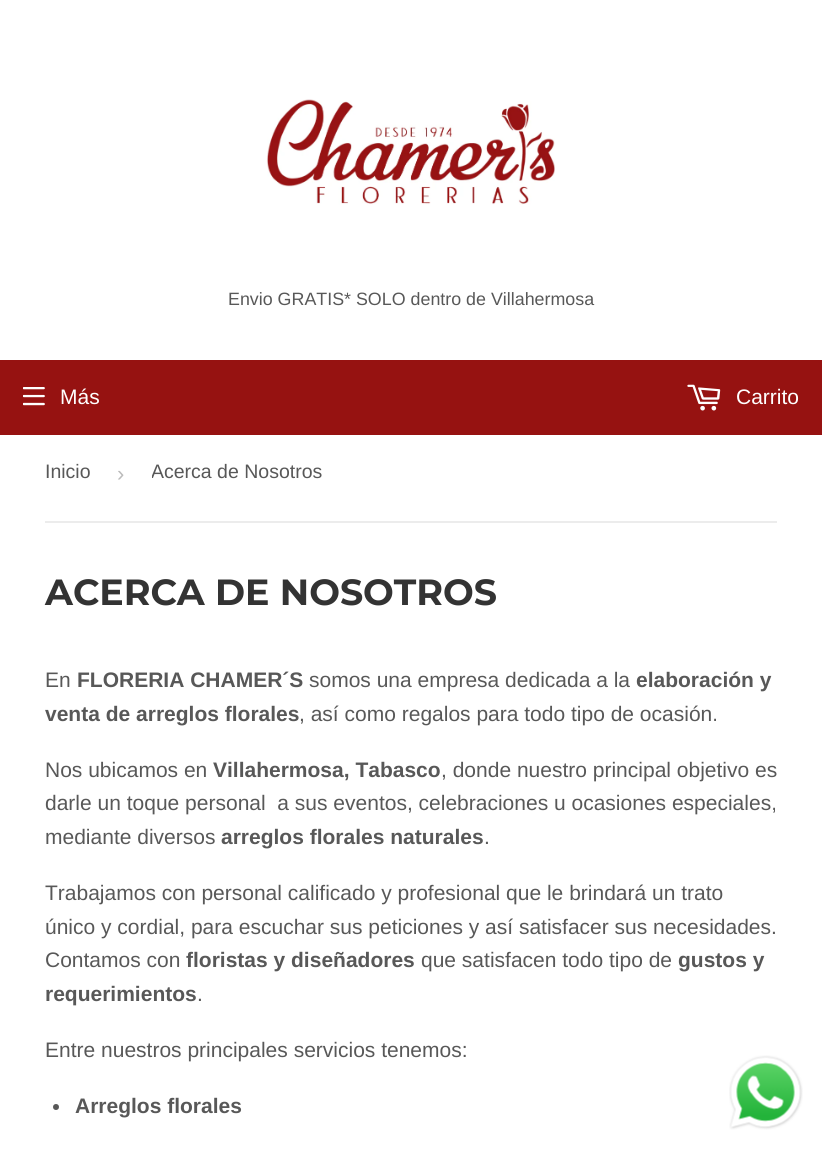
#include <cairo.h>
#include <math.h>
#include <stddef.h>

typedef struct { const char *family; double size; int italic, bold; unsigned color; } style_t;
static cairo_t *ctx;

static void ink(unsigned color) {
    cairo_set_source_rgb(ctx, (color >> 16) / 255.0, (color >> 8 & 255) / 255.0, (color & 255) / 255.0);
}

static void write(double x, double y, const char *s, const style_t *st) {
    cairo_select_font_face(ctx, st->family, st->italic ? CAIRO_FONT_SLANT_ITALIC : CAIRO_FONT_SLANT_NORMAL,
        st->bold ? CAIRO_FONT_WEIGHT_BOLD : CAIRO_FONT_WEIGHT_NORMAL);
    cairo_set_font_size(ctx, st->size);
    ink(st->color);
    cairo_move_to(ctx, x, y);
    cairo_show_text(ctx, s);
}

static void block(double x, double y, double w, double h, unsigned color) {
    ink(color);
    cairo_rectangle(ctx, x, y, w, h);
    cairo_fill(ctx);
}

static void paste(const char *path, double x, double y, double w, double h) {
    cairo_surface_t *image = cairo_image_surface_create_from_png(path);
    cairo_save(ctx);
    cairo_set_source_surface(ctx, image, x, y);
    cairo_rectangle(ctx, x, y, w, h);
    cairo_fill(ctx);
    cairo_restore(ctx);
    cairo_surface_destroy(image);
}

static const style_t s1 = {"Liberation Sans", 17.85, 0, 0, 0x585858};
static const style_t s2 = {"Liberation Sans", 21, 0, 0, 0xffffff};
static const style_t s3 = {"Liberation Sans", 19.5, 0, 0, 0x585858};
static const style_t s4 = {"Liberation Sans", 22, 0, 0, 0xbbbbbb};
static const style_t s5 = {"Montserrat Thin", 36.4, 0, 0, 0x333333};
static const style_t s6 = {"Liberation Sans", 21, 0, 0, 0x585858};
static const style_t s7 = {"Liberation Sans", 21, 0, 1, 0x585858};

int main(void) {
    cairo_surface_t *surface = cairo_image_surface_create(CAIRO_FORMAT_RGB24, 822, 1149);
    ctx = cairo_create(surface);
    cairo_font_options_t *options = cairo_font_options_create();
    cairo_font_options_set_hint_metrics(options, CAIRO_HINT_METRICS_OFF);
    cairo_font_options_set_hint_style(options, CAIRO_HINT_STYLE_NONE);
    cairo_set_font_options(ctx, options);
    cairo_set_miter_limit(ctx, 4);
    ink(0xffffff);
    cairo_paint(ctx);
    paste("pic1.png", 266, 99, 289, 106);
    write(228, 305, "Envio GRATIS* SOLO dentro de Villahermosa", &s1);
    block(0, 360, 822, 75, 0x961211);
    paste("pic2.png", 23, 387, 22, 19);
    write(60, 404, "Más", &s2);
    paste("pic3.png", 687, 384, 34, 27);
    write(736, 404, "Carrito", &s2);
    block(45, 521, 732, 2, 0xececec);
    write(45, 478, "Inicio", &s3);
    write(117, 481, "›", &s4);
    cairo_save(ctx);
    cairo_rectangle(ctx, 152, 435, 181, 75);
    cairo_clip(ctx);
    write(151, 478, "Acerca de Nosotros", &s3);
    cairo_restore(ctx);
    write(45, 605, "ACERCA DE NOSOTROS", &s5);
    write(45, 687, "En", &s6);
    write(77, 687, "FLORERIA CHAMER´S", &s7);
    write(309, 687, "somos una empresa dedicada a la", &s6);
    write(636, 687, "elaboración y", &s7);
    write(45, 721, "venta de arreglos florales", &s7);
    write(299, 721, ", así como regalos para todo tipo de ocasión.", &s6);
    write(45, 777, "Nos ubicamos en", &s6);
    write(213, 777, "Villahermosa, Tabasco", &s7);
    write(441, 777, ", donde nuestro principal objetivo es", &s6);
    write(45, 810, "darle un toque personal  a sus eventos, celebraciones u ocasiones especiales,", &s6);
    write(45, 844, "mediante diversos", &s6);
    write(221, 844, "arreglos florales naturales", &s7);
    write(484, 844, ".", &s6);
    write(45, 900, "Trabajamos con personal calificado y profesional que le brindará un trato", &s6);
    write(45, 934, "único y cordial, para escuchar sus peticiones y así satisfacer sus necesidades.", &s6);
    write(45, 967, "Contamos con", &s6);
    write(186, 967, "floristas y diseñadores", &s7);
    write(421, 967, "que satisfacen todo tipo de", &s6);
    write(678, 967, "gustos y", &s7);
    write(45, 1001, "requerimientos", &s7);
    write(197, 1001, ".", &s6);
    write(45, 1057, "Entre nuestros principales servicios tenemos:", &s6);
    cairo_new_path(ctx);
    cairo_arc(ctx, 56, 1107, 3, 0, 2 * M_PI);
    cairo_fill(ctx);
    write(75, 1113, "Arreglos florales", &s7);
    paste("pic4.png", 729, 1055, 74, 75);
    cairo_surface_write_to_png(surface, "screenshot.png");
    cairo_font_options_destroy(options);
    cairo_destroy(ctx);
    cairo_surface_destroy(surface);
    return 0;
}
